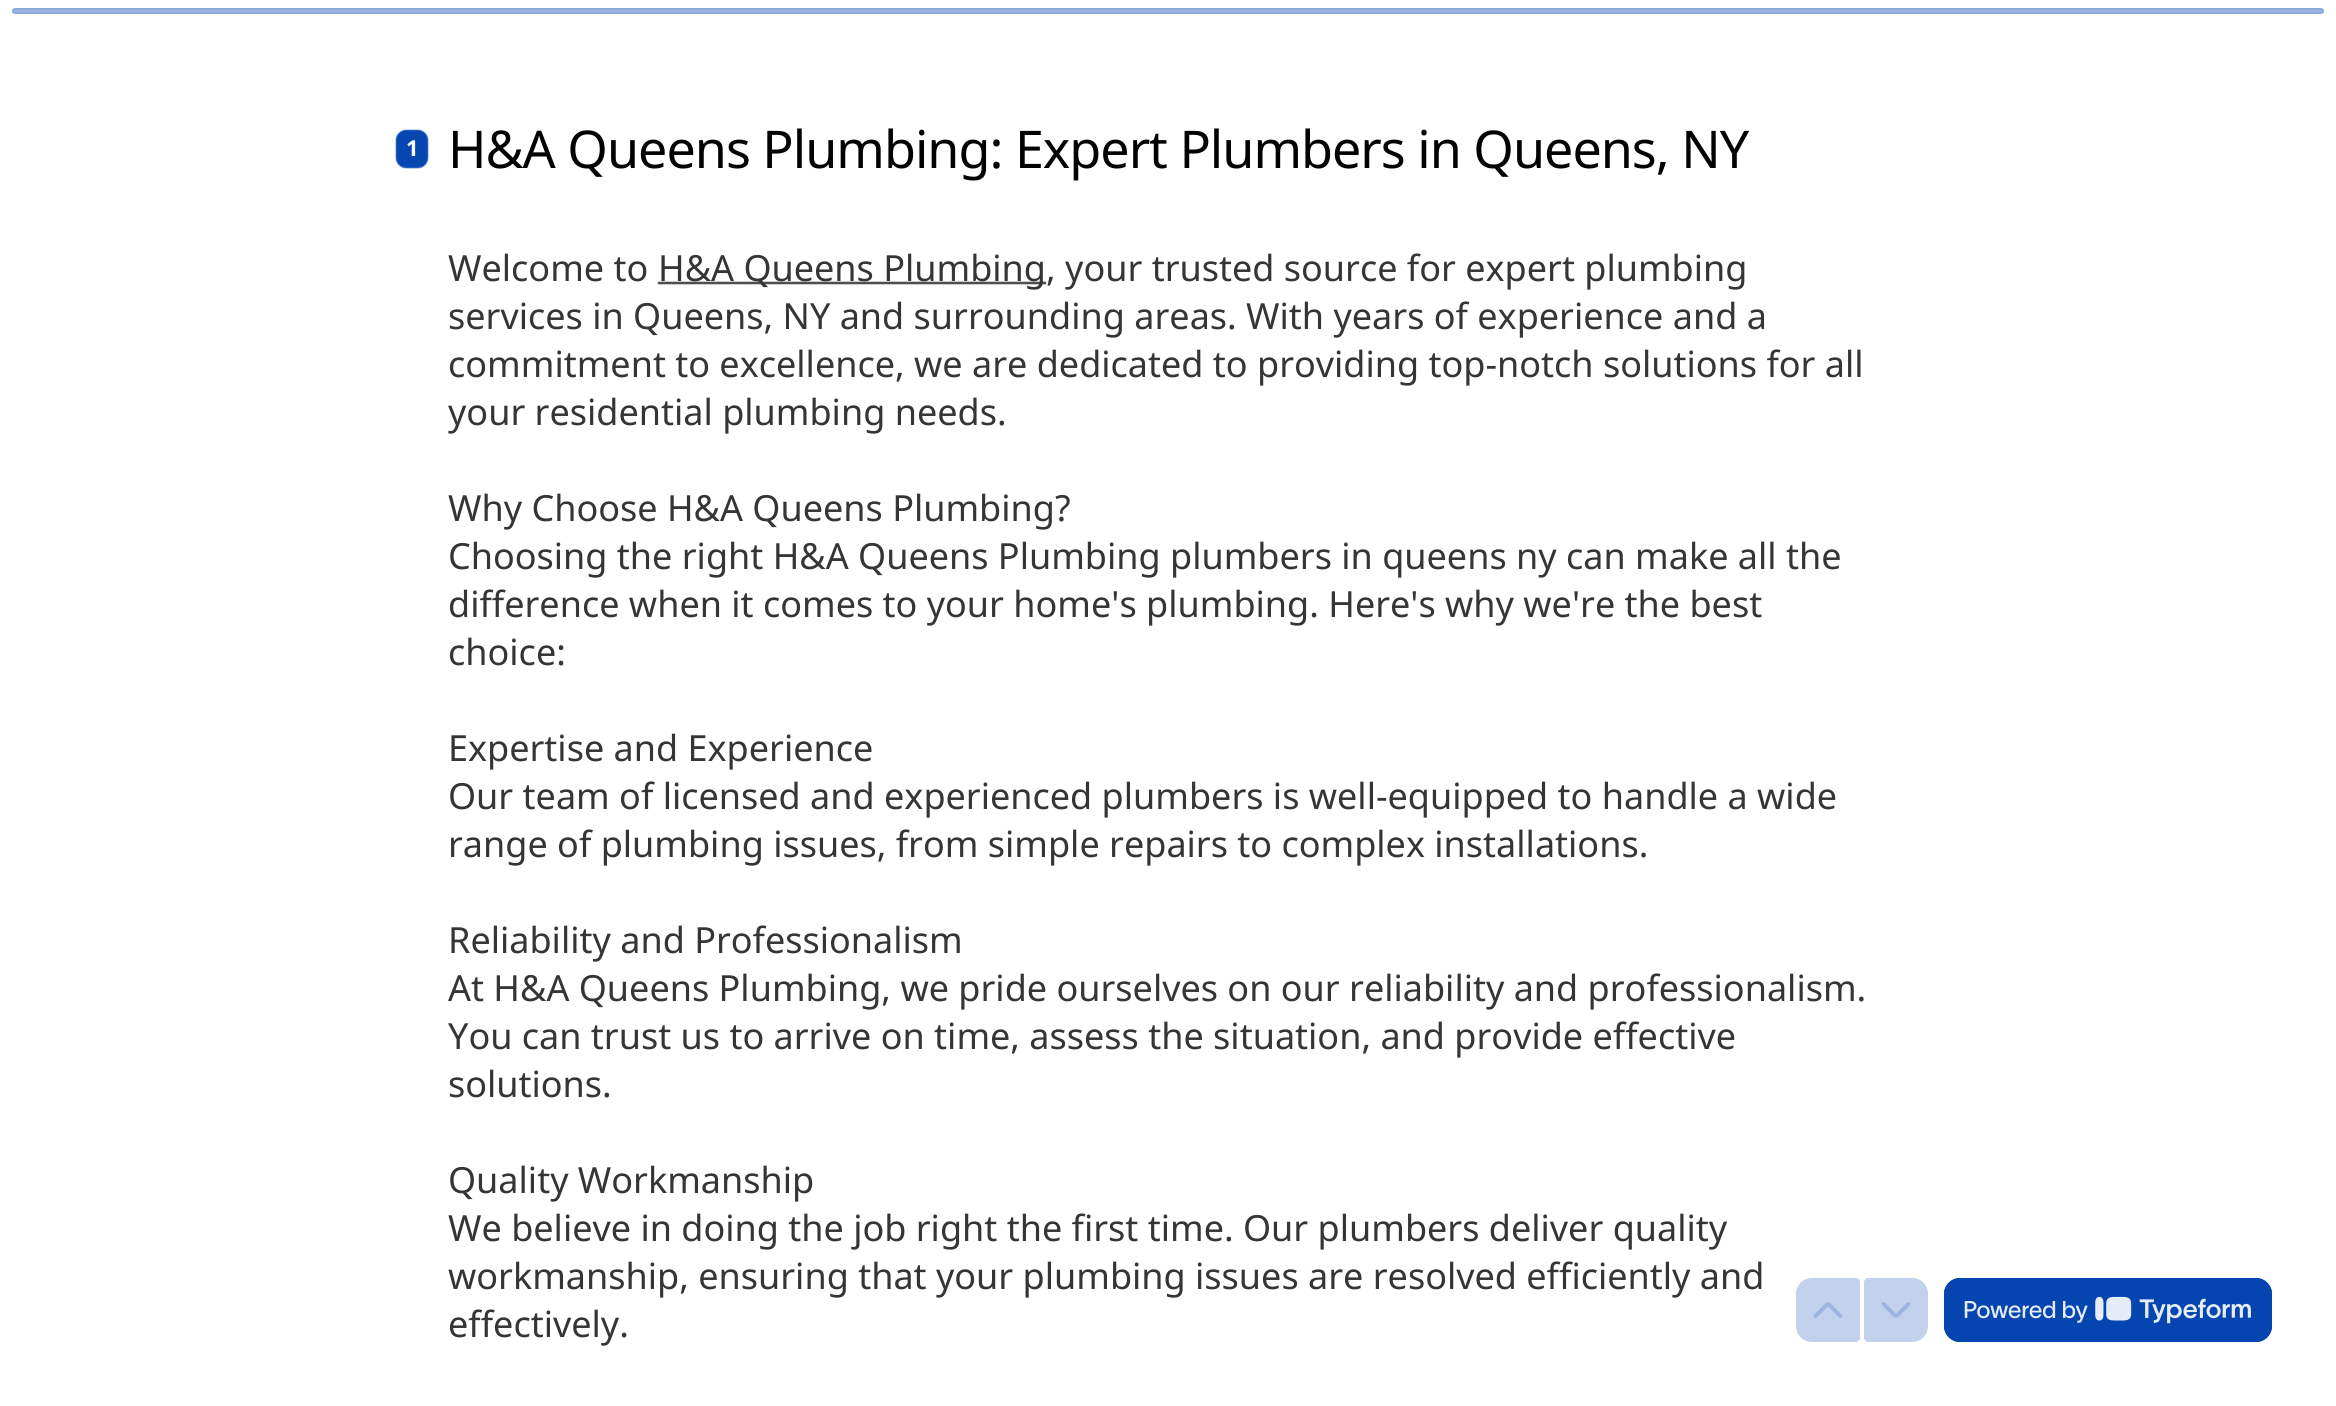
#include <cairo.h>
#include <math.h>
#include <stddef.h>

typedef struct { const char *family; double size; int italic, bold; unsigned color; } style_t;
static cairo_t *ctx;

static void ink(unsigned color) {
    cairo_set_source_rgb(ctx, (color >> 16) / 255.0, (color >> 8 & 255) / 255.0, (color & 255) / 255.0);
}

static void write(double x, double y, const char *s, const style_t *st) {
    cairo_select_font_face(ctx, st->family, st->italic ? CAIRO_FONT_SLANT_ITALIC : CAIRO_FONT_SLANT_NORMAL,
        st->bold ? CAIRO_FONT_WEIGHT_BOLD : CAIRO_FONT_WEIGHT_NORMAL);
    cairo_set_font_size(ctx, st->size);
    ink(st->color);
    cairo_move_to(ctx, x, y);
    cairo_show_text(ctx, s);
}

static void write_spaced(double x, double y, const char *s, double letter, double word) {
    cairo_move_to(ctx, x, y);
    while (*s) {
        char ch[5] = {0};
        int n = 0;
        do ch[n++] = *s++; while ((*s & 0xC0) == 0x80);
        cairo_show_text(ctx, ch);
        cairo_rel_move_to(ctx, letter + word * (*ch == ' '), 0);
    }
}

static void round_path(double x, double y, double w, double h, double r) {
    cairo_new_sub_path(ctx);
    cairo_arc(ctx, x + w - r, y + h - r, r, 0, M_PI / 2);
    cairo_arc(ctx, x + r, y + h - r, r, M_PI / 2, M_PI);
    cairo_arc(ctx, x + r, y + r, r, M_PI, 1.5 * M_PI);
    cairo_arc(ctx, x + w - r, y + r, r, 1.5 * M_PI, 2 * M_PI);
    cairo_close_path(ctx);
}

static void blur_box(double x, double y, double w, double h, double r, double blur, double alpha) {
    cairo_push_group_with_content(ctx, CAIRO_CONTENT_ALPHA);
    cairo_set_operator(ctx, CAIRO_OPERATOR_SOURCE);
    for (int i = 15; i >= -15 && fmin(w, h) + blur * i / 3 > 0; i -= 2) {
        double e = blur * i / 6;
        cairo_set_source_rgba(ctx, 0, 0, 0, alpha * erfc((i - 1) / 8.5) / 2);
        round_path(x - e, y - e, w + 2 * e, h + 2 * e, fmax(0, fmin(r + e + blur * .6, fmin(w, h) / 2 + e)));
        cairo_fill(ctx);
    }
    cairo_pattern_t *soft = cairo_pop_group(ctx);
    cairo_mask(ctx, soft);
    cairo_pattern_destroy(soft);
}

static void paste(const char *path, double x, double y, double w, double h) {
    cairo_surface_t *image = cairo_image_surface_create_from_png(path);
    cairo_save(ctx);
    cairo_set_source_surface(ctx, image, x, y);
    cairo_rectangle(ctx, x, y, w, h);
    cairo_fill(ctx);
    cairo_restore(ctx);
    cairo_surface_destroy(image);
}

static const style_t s1 = {"Noto Sans", 22, 0, 1, 0xffffff};
static const style_t s2 = {"Noto Sans", 36, 0, 0, 0x353535};

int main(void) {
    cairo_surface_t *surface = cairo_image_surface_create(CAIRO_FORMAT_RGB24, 2336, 1406);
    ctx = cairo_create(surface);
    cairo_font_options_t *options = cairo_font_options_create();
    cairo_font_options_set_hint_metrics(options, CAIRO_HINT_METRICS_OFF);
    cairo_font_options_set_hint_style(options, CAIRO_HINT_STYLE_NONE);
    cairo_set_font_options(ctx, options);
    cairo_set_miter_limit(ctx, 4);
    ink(0xffffff);
    cairo_paint(ctx);
    ink(0x9bb5df);
    round_path(12, 8, 2312, 6, 3);
    cairo_fill(ctx);
    round_path(13, 9, 2310, 4, 2);
    cairo_set_source_rgba(ctx, 0.016, 0.271, 0.686, 0.1);
    cairo_stroke(ctx);
    ink(0x0646b0);
    blur_box(396, 130, 32, 38, 10, 0.5, 1);
    write(406, 156, "1", &s1);
    cairo_select_font_face(ctx, "Noto Sans", CAIRO_FONT_SLANT_NORMAL, CAIRO_FONT_WEIGHT_NORMAL);
    cairo_set_font_size(ctx, 52);
    ink(0x020202);
    write_spaced(448, 168, "H&A Queens Plumbing: Expert Plumbers in Queens, NY", -1, 0);
    write(448, 281, "Welcome to", &s2);
    ink(0x353535);
    blur_box(658, 282, 388, 2, 0, 0.5, 1);
    write(658, 281, "H&A Queens Plumbing, your trusted source for expert plumbing", &s2);
    write(448, 329, "services in Queens, NY and surrounding areas. With years of experience and a", &s2);
    write(448, 377, "commitment to excellence, we are dedicated to providing top-notch solutions for all", &s2);
    write(448, 425, "your residential plumbing needs.", &s2);
    write(448, 521, "Why Choose H&A Queens Plumbing?", &s2);
    write(448, 569, "Choosing the right H&A Queens Plumbing plumbers in queens ny can make all the", &s2);
    write(448, 617, "difference when it comes to your home's plumbing. Here's why we're the best", &s2);
    write(448, 665, "choice:", &s2);
    write(448, 761, "Expertise and Experience", &s2);
    write(448, 809, "Our team of licensed and experienced plumbers is well-equipped to handle a wide", &s2);
    write(448, 857, "range of plumbing issues, from simple repairs to complex installations.", &s2);
    write(448, 953, "Reliability and Professionalism", &s2);
    write(448, 1001, "At H&A Queens Plumbing, we pride ourselves on our reliability and professionalism.", &s2);
    write(448, 1049, "You can trust us to arrive on time, assess the situation, and provide effective", &s2);
    write(448, 1097, "solutions.", &s2);
    write(448, 1193, "Quality Workmanship", &s2);
    write(448, 1241, "We believe in doing the job right the first time. Our plumbers deliver quality", &s2);
    write(448, 1289, "workmanship, ensuring that your plumbing issues are resolved efficiently and", &s2);
    write(448, 1337, "effectively.", &s2);
    ink(0xc3d2ec);
    cairo_new_path(ctx);
    cairo_move_to(ctx, 1812, 1278);
    cairo_line_to(ctx, 1856, 1278);
    cairo_curve_to(ctx, 1858, 1278, 1860, 1280, 1860, 1282);
    cairo_line_to(ctx, 1860, 1338);
    cairo_curve_to(ctx, 1860, 1340, 1858, 1342, 1856, 1342);
    cairo_line_to(ctx, 1812, 1342);
    cairo_curve_to(ctx, 1803, 1342, 1796, 1335, 1796, 1326);
    cairo_line_to(ctx, 1796, 1294);
    cairo_curve_to(ctx, 1796, 1285, 1803, 1278, 1812, 1278);
    cairo_close_path(ctx);
    cairo_fill(ctx);
    paste("pic1.png", 1813, 1302, 30, 16);
    cairo_new_path(ctx);
    cairo_move_to(ctx, 1868, 1278);
    cairo_line_to(ctx, 1912, 1278);
    cairo_curve_to(ctx, 1921, 1278, 1928, 1285, 1928, 1294);
    cairo_line_to(ctx, 1928, 1326);
    cairo_curve_to(ctx, 1928, 1335, 1921, 1342, 1912, 1342);
    cairo_line_to(ctx, 1868, 1342);
    cairo_curve_to(ctx, 1866, 1342, 1864, 1340, 1864, 1338);
    cairo_line_to(ctx, 1864, 1282);
    cairo_curve_to(ctx, 1864, 1280, 1866, 1278, 1868, 1278);
    cairo_close_path(ctx);
    cairo_fill(ctx);
    paste("pic2.png", 1881, 1302, 30, 16);
    round_path(1945, 1279, 326, 62, 15);
    ink(0x0445af);
    cairo_stroke(ctx);
    round_path(1944, 1278, 328, 64, 16);
    cairo_fill(ctx);
    paste("pic3.png", 1964, 1296, 287, 28);
    cairo_surface_write_to_png(surface, "screenshot.png");
    cairo_font_options_destroy(options);
    cairo_destroy(ctx);
    cairo_surface_destroy(surface);
    return 0;
}
